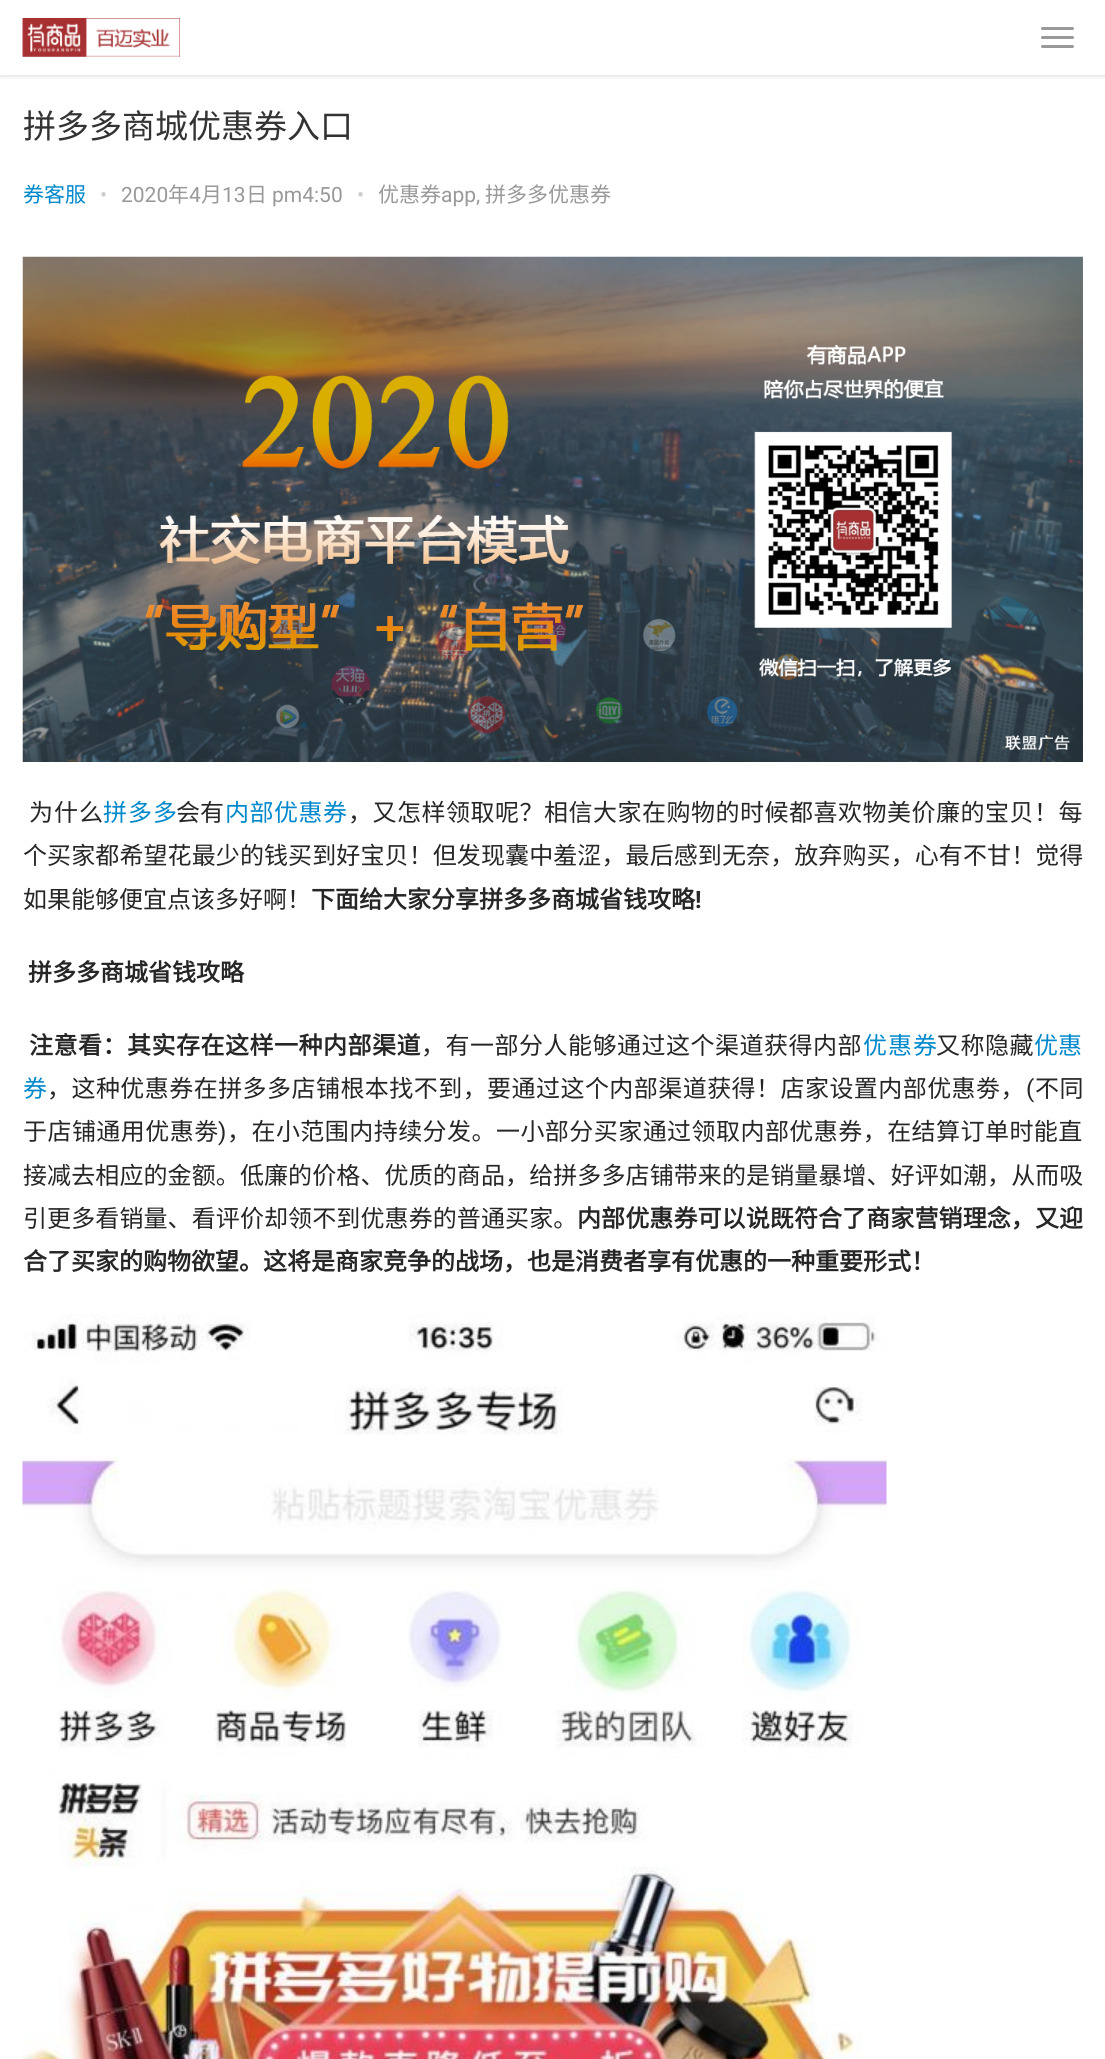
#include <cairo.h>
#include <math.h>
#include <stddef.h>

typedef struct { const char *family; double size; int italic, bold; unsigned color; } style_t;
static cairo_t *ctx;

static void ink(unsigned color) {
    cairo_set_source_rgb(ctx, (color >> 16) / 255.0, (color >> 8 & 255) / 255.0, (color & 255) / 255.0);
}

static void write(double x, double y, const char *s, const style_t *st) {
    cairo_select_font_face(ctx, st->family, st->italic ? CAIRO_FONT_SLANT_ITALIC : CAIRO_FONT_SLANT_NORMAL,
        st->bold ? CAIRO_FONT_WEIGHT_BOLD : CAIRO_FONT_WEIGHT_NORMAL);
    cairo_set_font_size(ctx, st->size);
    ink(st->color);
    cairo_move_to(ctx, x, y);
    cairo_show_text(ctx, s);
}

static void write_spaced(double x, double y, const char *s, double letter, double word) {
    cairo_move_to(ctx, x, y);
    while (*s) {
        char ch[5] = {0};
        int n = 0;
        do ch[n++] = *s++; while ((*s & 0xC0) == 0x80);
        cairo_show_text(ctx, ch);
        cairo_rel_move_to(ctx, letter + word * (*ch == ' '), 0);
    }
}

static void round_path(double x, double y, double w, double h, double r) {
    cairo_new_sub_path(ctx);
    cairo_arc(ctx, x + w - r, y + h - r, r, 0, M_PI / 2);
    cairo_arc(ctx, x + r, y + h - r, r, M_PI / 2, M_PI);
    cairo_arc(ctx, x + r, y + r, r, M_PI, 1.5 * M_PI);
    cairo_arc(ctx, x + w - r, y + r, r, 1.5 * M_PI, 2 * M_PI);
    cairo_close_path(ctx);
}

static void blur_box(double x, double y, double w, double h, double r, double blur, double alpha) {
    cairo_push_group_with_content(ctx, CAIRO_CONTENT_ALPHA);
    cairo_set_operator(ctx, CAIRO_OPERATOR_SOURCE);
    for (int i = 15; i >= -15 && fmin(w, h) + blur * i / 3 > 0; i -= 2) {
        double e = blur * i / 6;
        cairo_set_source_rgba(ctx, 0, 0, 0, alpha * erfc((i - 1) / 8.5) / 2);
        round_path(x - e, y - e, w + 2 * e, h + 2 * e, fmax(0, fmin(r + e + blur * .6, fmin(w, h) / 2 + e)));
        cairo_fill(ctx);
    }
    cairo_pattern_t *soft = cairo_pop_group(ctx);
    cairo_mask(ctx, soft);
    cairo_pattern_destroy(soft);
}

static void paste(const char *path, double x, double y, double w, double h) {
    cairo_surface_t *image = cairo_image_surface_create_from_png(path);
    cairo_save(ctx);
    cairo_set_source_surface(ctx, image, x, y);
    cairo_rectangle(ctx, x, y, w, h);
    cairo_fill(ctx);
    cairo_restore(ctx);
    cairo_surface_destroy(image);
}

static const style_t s1 = {"Noto Sans CJK SC", 33, 0, 0, 0x333333};
static const style_t s2 = {"Noto Sans CJK SC", 21, 0, 0, 0x0088cc};
static const style_t s3 = {"Roboto", 21, 0, 0, 0xcccccc};
static const style_t s4 = {"Roboto", 21, 0, 0, 0x999999};
static const style_t s5 = {"Noto Sans CJK SC", 21, 0, 0, 0x999999};
static const style_t s6 = {"Noto Sans CJK SC", 24, 0, 0, 0x262626};
static const style_t s7 = {"Noto Sans CJK SC", 24, 0, 1, 0x262626};
static const style_t s8 = {"Roboto", 24, 0, 1, 0x262626};
static const style_t s9 = {"Noto Sans CJK SC", 24, 0, 0, 0x0088cc};

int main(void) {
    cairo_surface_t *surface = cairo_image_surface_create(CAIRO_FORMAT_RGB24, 1105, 2059);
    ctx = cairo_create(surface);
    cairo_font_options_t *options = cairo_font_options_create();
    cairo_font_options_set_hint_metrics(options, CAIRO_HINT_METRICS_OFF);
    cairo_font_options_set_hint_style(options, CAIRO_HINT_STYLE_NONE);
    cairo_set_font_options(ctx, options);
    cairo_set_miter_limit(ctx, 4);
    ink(0xffffff);
    cairo_paint(ctx);
    cairo_save(ctx);
    cairo_rectangle(ctx, 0, 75, 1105, 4);
    cairo_clip(ctx);
    ink(0x000000);
    blur_box(-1, -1, 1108, 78, 0, 2, 0.1);
    cairo_restore(ctx);
    paste("pic1.png", 22, 18, 158, 39);
    ink(0x999999);
    round_path(1041, 27, 33, 3, 1.5);
    cairo_fill(ctx);
    round_path(1041, 36, 33, 3, 1.5);
    cairo_fill(ctx);
    round_path(1041, 45, 33, 3, 1.5);
    cairo_fill(ctx);
    write(23, 138, "拼多多商城优惠券入口", &s1);
    write(23, 202, "券客服", &s2);
    write(100, 202, "•", &s3);
    write(121, 202, "2020", &s4);
    write(168, 202, "年", &s5);
    write(189, 202, "4", &s4);
    write(201, 202, "月", &s5);
    write(222, 202, "13", &s4);
    write(246, 202, "日", &s5);
    write(272, 202, "pm4:50", &s4);
    write(357, 202, "•", &s3);
    write(378, 202, "优惠券", &s5);
    write(441, 202, "app,", &s4);
    write(485, 202, "拼多多优惠券", &s5);
    paste("pic2.png", 22, 256, 1061, 506);
    cairo_set_font_size(ctx, 24);
    ink(0x262626);
    write_spaced(29, 821, "为什么", 1, 0);
    ink(0x0088cc);
    write_spaced(103, 821, "拼多多", 1, 0);
    write(176, 821, "会有", &s6);
    ink(0x0088cc);
    write_spaced(225, 821, "内部优惠券", 0.5, 0);
    ink(0x262626);
    write_spaced(348, 821, "，又怎样领取呢？相信大家在购物的时候都喜欢物美价廉的宝贝！每", 0.5, 0);
    write_spaced(23, 864, "个买家都希望花最少的钱买到好宝贝！但发现囊中羞涩，最后感到无奈，放弃购买，心有不甘！觉得", 0.1, 0);
    write(23, 908, "如果能够便宜点该多好啊！", &s6);
    write(311, 908, "下面给大家分享拼多多商城省钱攻略", &s7);
    write(695, 908, "!", &s8);
    write(28, 981, "拼多多商城省钱攻略", &s7);
    write_spaced(29, 1054, "注意看：其实存在这样一种内部渠道", 0.5, 0);
    cairo_select_font_face(ctx, "Noto Sans CJK SC", CAIRO_FONT_SLANT_NORMAL, CAIRO_FONT_WEIGHT_NORMAL);
    write_spaced(421, 1054, "，有一部分人能够通过这个渠道获得内部", 0.5, 0);
    ink(0x0088cc);
    write_spaced(863, 1054, "优惠券", 1, 0);
    ink(0x262626);
    write_spaced(936, 1054, "又称隐藏", 0.5, 0);
    write(1034, 1054, "优惠", &s9);
    write(23, 1097, "券", &s9);
    ink(0x262626);
    write_spaced(47, 1097, "，这种优惠券在拼多多店铺根本找不到，要通过这个内部渠道获得！店家设置内部优惠劵，", 0.45, 0);
    cairo_select_font_face(ctx, "Roboto", CAIRO_FONT_SLANT_NORMAL, CAIRO_FONT_WEIGHT_NORMAL);
    write_spaced(1026, 1097, "(", 0.45, 0);
    cairo_select_font_face(ctx, "Noto Sans CJK SC", CAIRO_FONT_SLANT_NORMAL, CAIRO_FONT_WEIGHT_NORMAL);
    write_spaced(1035, 1097, "不同", 0.45, 0);
    write_spaced(23, 1140, "于店铺通用优惠劵", 0.45, 0);
    cairo_select_font_face(ctx, "Roboto", CAIRO_FONT_SLANT_NORMAL, CAIRO_FONT_WEIGHT_NORMAL);
    write_spaced(218, 1140, ")", 0.45, 0);
    cairo_select_font_face(ctx, "Noto Sans CJK SC", CAIRO_FONT_SLANT_NORMAL, CAIRO_FONT_WEIGHT_NORMAL);
    write_spaced(227, 1140, "，在小范围内持续分发。一小部分买家通过领取内部优惠券，在结算订单时能直", 0.45, 0);
    write_spaced(23, 1184, "接减去相应的金额。低廉的价格、优质的商品，给拼多多店铺带来的是销量暴增、好评如潮，从而吸", 0.1, 0);
    write_spaced(23, 1227, "引更多看销量、看评价却领不到优惠券的普通买家。", 0.1, 0);
    cairo_select_font_face(ctx, "Noto Sans CJK SC", CAIRO_FONT_SLANT_NORMAL, CAIRO_FONT_WEIGHT_BOLD);
    write_spaced(577, 1227, "内部优惠券可以说既符合了商家营销理念，又迎", 0.1, 0);
    write(23, 1270, "合了买家的购物欲望。这将是商家竞争的战场，也是消费者享有优惠的一种重要形式！", &s7);
    paste("pic3.png", 22, 1314, 865, 745);
    cairo_surface_write_to_png(surface, "screenshot.png");
    cairo_font_options_destroy(options);
    cairo_destroy(ctx);
    cairo_surface_destroy(surface);
    return 0;
}
